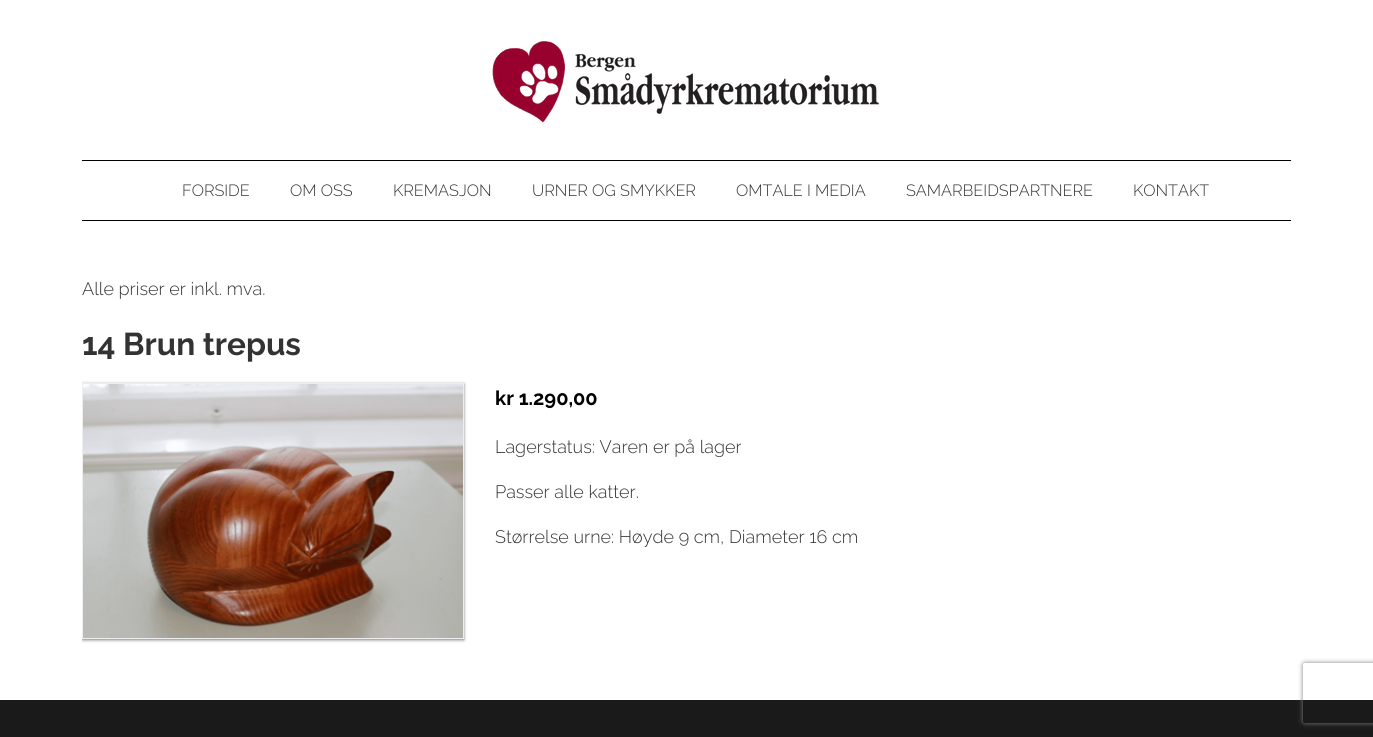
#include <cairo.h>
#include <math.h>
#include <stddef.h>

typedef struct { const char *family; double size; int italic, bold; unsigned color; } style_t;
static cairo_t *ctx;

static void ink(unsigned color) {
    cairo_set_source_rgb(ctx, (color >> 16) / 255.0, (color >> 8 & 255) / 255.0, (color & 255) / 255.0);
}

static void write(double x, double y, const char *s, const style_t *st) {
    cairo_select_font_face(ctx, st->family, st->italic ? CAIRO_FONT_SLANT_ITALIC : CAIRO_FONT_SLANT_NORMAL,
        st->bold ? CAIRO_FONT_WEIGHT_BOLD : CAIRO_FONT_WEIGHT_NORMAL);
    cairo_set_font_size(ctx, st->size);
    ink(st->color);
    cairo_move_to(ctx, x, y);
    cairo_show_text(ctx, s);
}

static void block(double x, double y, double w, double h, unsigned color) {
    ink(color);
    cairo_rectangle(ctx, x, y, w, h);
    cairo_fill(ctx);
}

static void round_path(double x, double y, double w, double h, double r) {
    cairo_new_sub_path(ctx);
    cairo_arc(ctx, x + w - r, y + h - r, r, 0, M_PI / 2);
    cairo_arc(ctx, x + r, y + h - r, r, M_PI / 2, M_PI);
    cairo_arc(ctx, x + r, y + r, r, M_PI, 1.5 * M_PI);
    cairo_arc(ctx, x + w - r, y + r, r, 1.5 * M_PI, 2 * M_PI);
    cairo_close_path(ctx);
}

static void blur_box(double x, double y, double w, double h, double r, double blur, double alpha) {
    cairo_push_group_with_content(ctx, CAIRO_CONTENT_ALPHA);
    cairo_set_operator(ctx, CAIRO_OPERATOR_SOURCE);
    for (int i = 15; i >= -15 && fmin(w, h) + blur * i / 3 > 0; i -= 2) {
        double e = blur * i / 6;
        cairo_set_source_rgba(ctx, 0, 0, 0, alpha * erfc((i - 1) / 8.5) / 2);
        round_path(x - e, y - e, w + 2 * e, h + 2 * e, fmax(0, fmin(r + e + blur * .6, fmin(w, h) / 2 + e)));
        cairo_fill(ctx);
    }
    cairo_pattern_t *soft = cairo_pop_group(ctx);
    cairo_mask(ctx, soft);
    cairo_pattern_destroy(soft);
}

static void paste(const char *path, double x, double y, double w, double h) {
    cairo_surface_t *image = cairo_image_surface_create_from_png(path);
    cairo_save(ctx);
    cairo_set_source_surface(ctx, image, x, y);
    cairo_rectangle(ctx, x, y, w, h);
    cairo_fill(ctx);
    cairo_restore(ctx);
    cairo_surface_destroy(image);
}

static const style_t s1 = {"Raleway Light", 16.25, 0, 0, 0x333333};
static const style_t s2 = {"Raleway Light", 18, 0, 0, 0x333333};
static const style_t s3 = {"Raleway", 31.5, 0, 1, 0x333333};
static const style_t s4 = {"Raleway", 20, 0, 1, 0x000000};

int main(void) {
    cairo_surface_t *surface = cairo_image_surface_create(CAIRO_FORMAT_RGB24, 1373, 737);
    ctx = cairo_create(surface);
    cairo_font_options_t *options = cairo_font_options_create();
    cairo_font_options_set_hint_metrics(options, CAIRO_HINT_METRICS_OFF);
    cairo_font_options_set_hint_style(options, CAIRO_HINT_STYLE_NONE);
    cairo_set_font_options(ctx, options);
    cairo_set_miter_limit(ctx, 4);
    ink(0x1a1a1a);
    cairo_paint(ctx);
    block(0, 0, 1373, 700, 0xffffff);
    paste("pic1.png", 492, 41, 387, 82);
    block(82, 160, 1209, 1, 0x000000);
    block(82, 220, 1209, 1, 0x000000);
    write(182, 196, "FORSIDE", &s1);
    write(290, 196, "OM OSS", &s1);
    write(393, 196, "KREMASJON", &s1);
    write(532, 196, "URNER OG SMYKKER", &s1);
    write(736, 196, "OMTALE I MEDIA", &s1);
    write(906, 196, "SAMARBEIDSPARTNERE", &s1);
    write(1133, 196, "KONTAKT", &s1);
    write(82, 295, "Alle priser er inkl. mva.", &s2);
    write(82, 355, "14 Brun trepus", &s3);
    cairo_save(ctx);
    cairo_rectangle(ctx, 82, 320, 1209, 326);
    cairo_clip(ctx);
    ink(0x000000);
    blur_box(82, 384, 382, 256, 0, 1.5, 0.5);
    cairo_restore(ctx);
    cairo_rectangle(ctx, 82.5, 383.5, 381, 255);
    ink(0xeeeeee);
    cairo_set_line_width(ctx, 1);
    cairo_stroke(ctx);
    paste("pic2.png", 83, 384, 380, 254);
    write(495, 405, "kr 1.290,00", &s4);
    write(495, 453, "Lagerstatus: Varen er på lager", &s2);
    write(495, 498, "Passer alle katter.", &s2);
    write(495, 543, "Størrelse urne: Høyde 9 cm, Diameter 16 cm", &s2);
    cairo_save(ctx);
    cairo_set_fill_rule(ctx, CAIRO_FILL_RULE_EVEN_ODD);
    cairo_new_path(ctx);
    cairo_move_to(ctx, 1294, 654);
    cairo_line_to(ctx, 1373, 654);
    cairo_line_to(ctx, 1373, 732);
    cairo_line_to(ctx, 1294, 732);
    cairo_close_path(ctx);
    cairo_move_to(ctx, 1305, 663);
    cairo_line_to(ctx, 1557, 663);
    cairo_curve_to(ctx, 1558, 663, 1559, 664, 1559, 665);
    cairo_line_to(ctx, 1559, 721);
    cairo_curve_to(ctx, 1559, 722, 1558, 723, 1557, 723);
    cairo_line_to(ctx, 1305, 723);
    cairo_curve_to(ctx, 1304, 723, 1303, 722, 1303, 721);
    cairo_line_to(ctx, 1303, 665);
    cairo_curve_to(ctx, 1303, 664, 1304, 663, 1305, 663);
    cairo_close_path(ctx);
    cairo_clip(ctx);
    ink(0x808080);
    blur_box(1303, 663, 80, 60, 2, 2.5, 1);
    cairo_restore(ctx);
    cairo_surface_write_to_png(surface, "screenshot.png");
    cairo_font_options_destroy(options);
    cairo_destroy(ctx);
    cairo_surface_destroy(surface);
    return 0;
}
